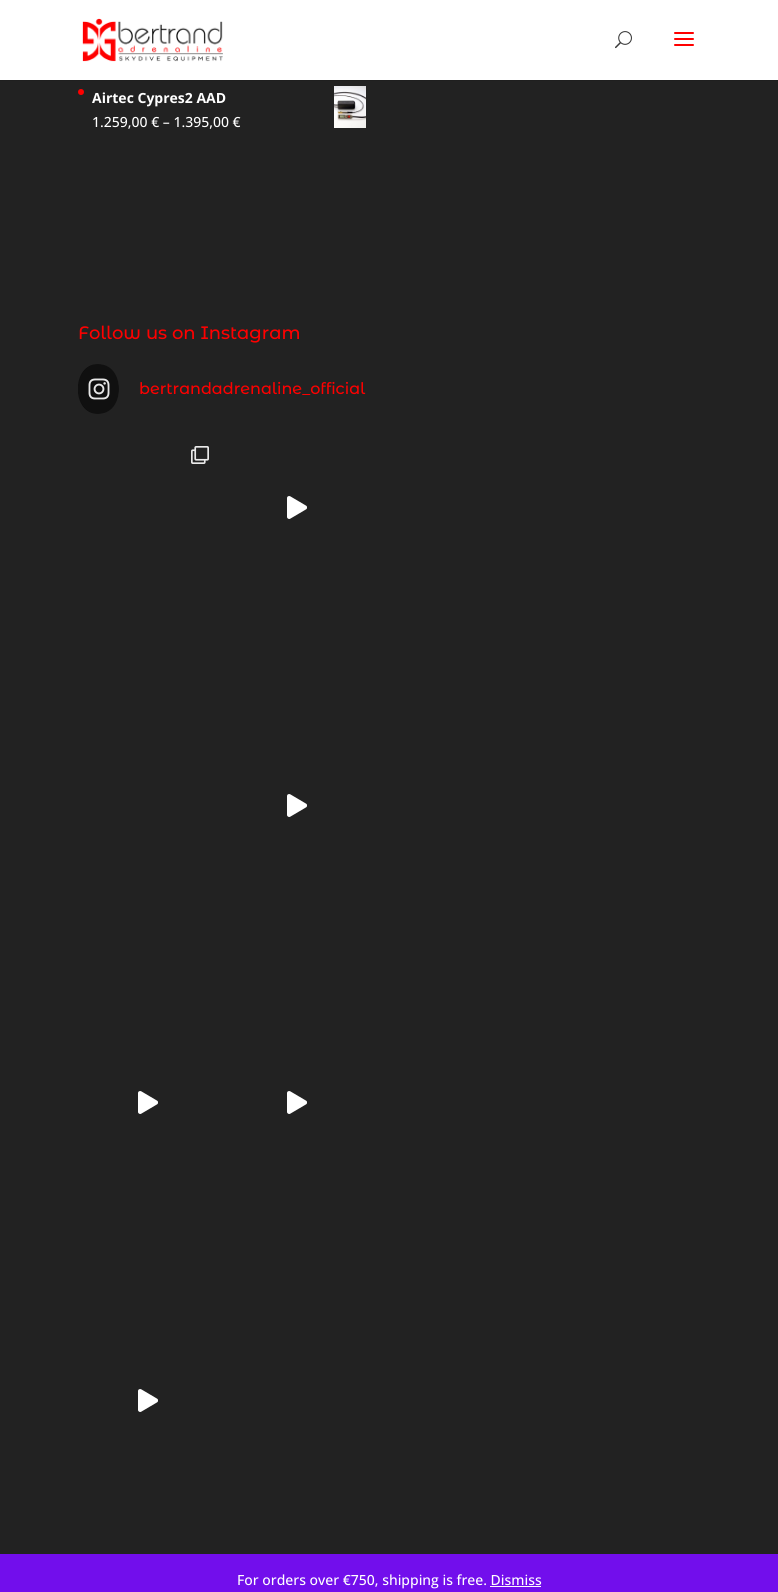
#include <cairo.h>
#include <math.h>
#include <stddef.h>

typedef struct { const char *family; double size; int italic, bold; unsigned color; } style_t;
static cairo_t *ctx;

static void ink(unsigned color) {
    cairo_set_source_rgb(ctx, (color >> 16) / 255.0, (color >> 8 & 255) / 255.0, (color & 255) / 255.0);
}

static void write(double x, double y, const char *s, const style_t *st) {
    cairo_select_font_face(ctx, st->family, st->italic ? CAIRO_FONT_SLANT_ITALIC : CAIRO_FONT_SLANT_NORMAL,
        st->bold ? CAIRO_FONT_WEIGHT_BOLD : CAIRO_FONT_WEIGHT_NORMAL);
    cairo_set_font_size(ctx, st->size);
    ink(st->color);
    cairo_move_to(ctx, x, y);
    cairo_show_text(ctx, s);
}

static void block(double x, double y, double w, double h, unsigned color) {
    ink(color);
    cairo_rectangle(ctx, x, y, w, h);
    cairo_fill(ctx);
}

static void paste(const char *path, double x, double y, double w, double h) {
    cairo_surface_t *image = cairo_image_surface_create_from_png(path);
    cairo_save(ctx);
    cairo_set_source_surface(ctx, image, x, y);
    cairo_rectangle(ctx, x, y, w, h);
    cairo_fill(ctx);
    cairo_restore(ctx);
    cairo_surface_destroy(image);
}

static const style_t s1 = {"Open Sans", 14, 0, 1, 0xffffff};
static const style_t s2 = {"Open Sans Medium", 14, 0, 0, 0xffffff};
static const style_t s3 = {"Montserrat Alternates Medium", 18, 0, 0, 0xff0000};
static const style_t s4 = {"Montserrat Alternates Medium", 16, 0, 0, 0xff0000};

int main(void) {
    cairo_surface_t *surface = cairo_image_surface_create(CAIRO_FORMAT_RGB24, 778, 1592);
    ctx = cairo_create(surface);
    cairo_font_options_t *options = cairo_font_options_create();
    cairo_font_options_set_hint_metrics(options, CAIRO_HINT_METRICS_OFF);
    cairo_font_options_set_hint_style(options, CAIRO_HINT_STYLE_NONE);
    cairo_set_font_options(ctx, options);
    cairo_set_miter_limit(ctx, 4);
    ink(0x222222);
    cairo_paint(ctx);
    block(0, 80, 778, 1, 0x1f1f1f);
    block(0, 0, 778, 80, 0xffffff);
    paste("pic1.png", 82, 18, 141, 44);
    paste("pic2.png", 615, 31, 17, 18);
    paste("pic3.png", 674, 32, 20, 14);
    ink(0xff0000);
    cairo_arc(ctx, 81, 92, 3, 0, 2 * M_PI);
    cairo_fill(ctx);
    write(92, 103, "Airtec Cypres2 AAD", &s1);
    paste("pic4.png", 334, 86, 32, 42);
    write(92, 127, "1.259,00 € – 1.395,00 €", &s2);
    write(78, 339, "Follow us on Instagram", &s3);
    ink(0x333333);
    cairo_new_path(ctx);
    cairo_move_to(ctx, 98.5, 364);
    cairo_curve_to(ctx, 110, 364, 119, 375, 119, 389);
    cairo_curve_to(ctx, 119, 403, 110, 414, 98.5, 414);
    cairo_curve_to(ctx, 87, 414, 78, 403, 78, 389);
    cairo_curve_to(ctx, 78, 375, 87, 364, 98.5, 364);
    cairo_close_path(ctx);
    cairo_fill(ctx);
    cairo_save(ctx);
    cairo_rectangle(ctx, 78, 352, 288, 74);
    cairo_clip(ctx);
    cairo_set_source_rgba(ctx, 0, 0, 0, 0.68);
    cairo_new_path(ctx);
    cairo_move_to(ctx, 98, 364);
    cairo_curve_to(ctx, 126, 364, 126, 414, 98, 414);
    cairo_curve_to(ctx, 71, 414, 71, 364, 98, 364);
    cairo_close_path(ctx);
    cairo_fill(ctx);
    cairo_restore(ctx);
    paste("pic5.png", 88, 378, 22, 22);
    write(139, 394, "bertrandadrenaline_official", &s4);
    paste("pic6.png", 191, 446, 18, 18);
    paste("pic7.png", 287, 496, 20, 23);
    paste("pic7.png", 287, 794, 20, 23);
    paste("pic7.png", 138, 1091, 20, 23);
    paste("pic7.png", 287, 1091, 20, 23);
    paste("pic7.png", 138, 1389, 20, 23);
    block(0, 1554, 778, 38, 0x720eec);
    write(237, 1585, "For orders over €750, shipping is free. Dismiss", &s2);
    block(490, 1586, 51, 1, 0xfcfbfe);
    cairo_surface_write_to_png(surface, "screenshot.png");
    cairo_font_options_destroy(options);
    cairo_destroy(ctx);
    cairo_surface_destroy(surface);
    return 0;
}
